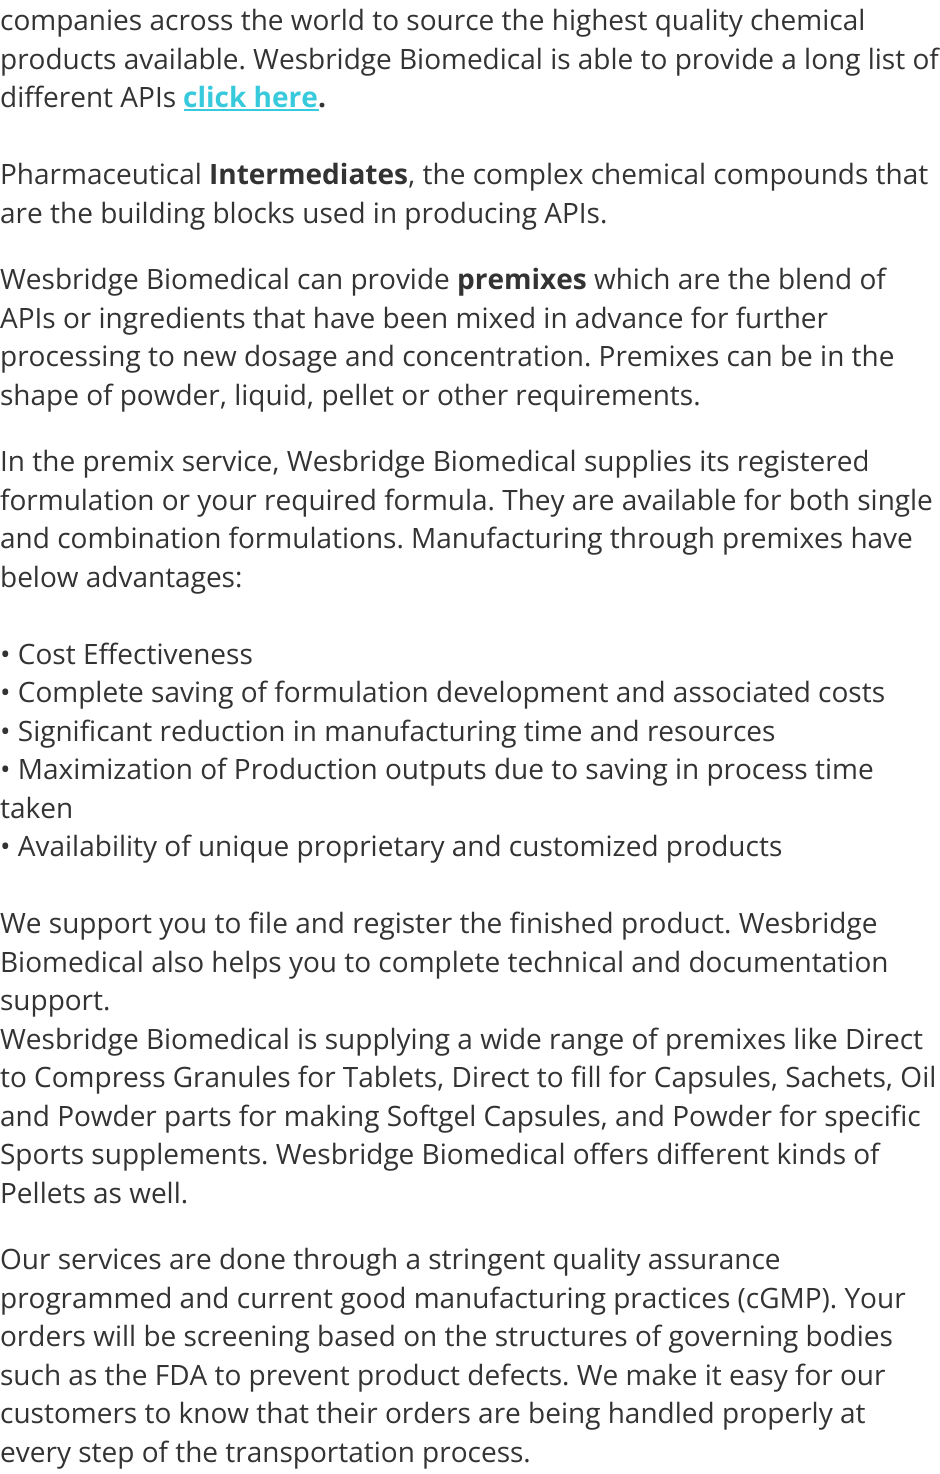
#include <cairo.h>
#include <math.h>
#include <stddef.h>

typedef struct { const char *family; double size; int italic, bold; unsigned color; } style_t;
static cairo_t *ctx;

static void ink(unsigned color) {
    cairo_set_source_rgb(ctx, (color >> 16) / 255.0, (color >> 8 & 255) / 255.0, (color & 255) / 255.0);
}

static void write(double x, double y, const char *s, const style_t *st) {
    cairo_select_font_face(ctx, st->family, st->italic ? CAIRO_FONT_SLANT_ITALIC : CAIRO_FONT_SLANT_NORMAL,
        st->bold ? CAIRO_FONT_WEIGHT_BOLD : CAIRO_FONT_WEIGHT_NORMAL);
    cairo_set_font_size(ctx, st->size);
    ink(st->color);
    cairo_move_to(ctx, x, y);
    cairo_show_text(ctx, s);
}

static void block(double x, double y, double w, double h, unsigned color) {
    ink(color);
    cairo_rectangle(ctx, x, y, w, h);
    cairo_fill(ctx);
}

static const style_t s1 = {"Open Sans", 28, 0, 0, 0x333333};
static const style_t s2 = {"Open Sans", 28, 0, 1, 0x37cadd};
static const style_t s3 = {"Open Sans", 28, 0, 1, 0x333333};

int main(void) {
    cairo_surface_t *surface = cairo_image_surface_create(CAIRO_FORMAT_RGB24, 940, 1474);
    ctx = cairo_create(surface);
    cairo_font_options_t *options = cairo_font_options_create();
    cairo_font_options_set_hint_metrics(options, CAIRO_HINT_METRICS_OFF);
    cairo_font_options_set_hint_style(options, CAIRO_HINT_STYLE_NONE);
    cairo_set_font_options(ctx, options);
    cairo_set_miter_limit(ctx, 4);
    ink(0xffffff);
    cairo_paint(ctx);
    write(0, 30, "companies across the world to source the highest quality chemical", &s1);
    write(0, 69, "products available. Wesbridge Biomedical is able to provide a long list of", &s1);
    write(0, 107, "different APIs", &s1);
    write(183, 107, "click here", &s2);
    write(318, 107, ".", &s3);
    block(184, 109, 135, 2, 0x37cadd);
    write(0, 184, "Pharmaceutical", &s1);
    write(209, 184, "Intermediates", &s3);
    write(408, 184, ", the complex chemical compounds that", &s1);
    write(0, 223, "are the building blocks used in producing APIs.", &s1);
    write(0, 289, "Wesbridge Biomedical can provide", &s1);
    write(457, 289, "premixes", &s3);
    write(594, 289, "which are the blend of", &s1);
    write(0, 328, "APIs or ingredients that have been mixed in advance for further", &s1);
    write(0, 366, "processing to new dosage and concentration. Premixes can be in the", &s1);
    write(0, 405, "shape of powder, liquid, pellet or other requirements.", &s1);
    write(0, 471, "In the premix service, Wesbridge Biomedical supplies its registered", &s1);
    write(0, 510, "formulation or your required formula. They are available for both single", &s1);
    write(0, 548, "and combination formulations. Manufacturing through premixes have", &s1);
    write(0, 587, "below advantages:", &s1);
    write(0, 664, "• Cost Effectiveness", &s1);
    write(0, 702, "• Complete saving of formulation development and associated costs", &s1);
    write(0, 741, "• Significant reduction in manufacturing time and resources", &s1);
    write(0, 779, "• Maximization of Production outputs due to saving in process time", &s1);
    write(0, 818, "taken", &s1);
    write(0, 856, "• Availability of unique proprietary and customized products", &s1);
    write(0, 933, "We support you to file and register the finished product. Wesbridge", &s1);
    write(0, 972, "Biomedical also helps you to complete technical and documentation", &s1);
    write(0, 1010, "support.", &s1);
    write(0, 1049, "Wesbridge Biomedical is supplying a wide range of premixes like Direct", &s1);
    write(0, 1087, "to Compress Granules for Tablets, Direct to fill for Capsules, Sachets, Oil", &s1);
    write(0, 1126, "and Powder parts for making Softgel Capsules, and Powder for specific", &s1);
    write(0, 1164, "Sports supplements. Wesbridge Biomedical offers different kinds of", &s1);
    write(0, 1203, "Pellets as well.", &s1);
    write(0, 1269, "Our services are done through a stringent quality assurance", &s1);
    write(0, 1308, "programmed and current good manufacturing practices (cGMP). Your", &s1);
    write(0, 1346, "orders will be screening based on the structures of governing bodies", &s1);
    write(0, 1385, "such as the FDA to prevent product defects. We make it easy for our", &s1);
    write(0, 1423, "customers to know that their orders are being handled properly at", &s1);
    write(0, 1462, "every step of the transportation process.", &s1);
    cairo_surface_write_to_png(surface, "screenshot.png");
    cairo_font_options_destroy(options);
    cairo_destroy(ctx);
    cairo_surface_destroy(surface);
    return 0;
}
